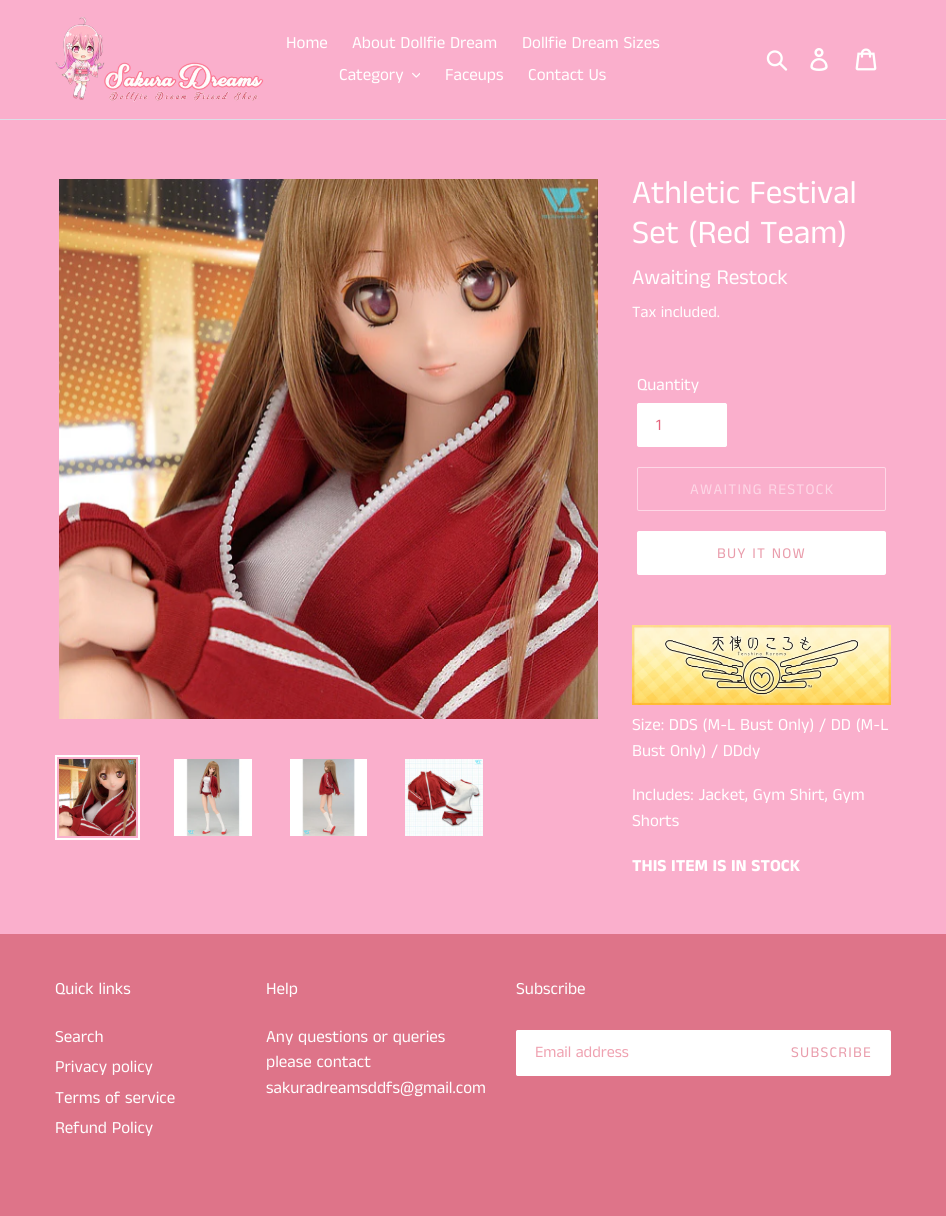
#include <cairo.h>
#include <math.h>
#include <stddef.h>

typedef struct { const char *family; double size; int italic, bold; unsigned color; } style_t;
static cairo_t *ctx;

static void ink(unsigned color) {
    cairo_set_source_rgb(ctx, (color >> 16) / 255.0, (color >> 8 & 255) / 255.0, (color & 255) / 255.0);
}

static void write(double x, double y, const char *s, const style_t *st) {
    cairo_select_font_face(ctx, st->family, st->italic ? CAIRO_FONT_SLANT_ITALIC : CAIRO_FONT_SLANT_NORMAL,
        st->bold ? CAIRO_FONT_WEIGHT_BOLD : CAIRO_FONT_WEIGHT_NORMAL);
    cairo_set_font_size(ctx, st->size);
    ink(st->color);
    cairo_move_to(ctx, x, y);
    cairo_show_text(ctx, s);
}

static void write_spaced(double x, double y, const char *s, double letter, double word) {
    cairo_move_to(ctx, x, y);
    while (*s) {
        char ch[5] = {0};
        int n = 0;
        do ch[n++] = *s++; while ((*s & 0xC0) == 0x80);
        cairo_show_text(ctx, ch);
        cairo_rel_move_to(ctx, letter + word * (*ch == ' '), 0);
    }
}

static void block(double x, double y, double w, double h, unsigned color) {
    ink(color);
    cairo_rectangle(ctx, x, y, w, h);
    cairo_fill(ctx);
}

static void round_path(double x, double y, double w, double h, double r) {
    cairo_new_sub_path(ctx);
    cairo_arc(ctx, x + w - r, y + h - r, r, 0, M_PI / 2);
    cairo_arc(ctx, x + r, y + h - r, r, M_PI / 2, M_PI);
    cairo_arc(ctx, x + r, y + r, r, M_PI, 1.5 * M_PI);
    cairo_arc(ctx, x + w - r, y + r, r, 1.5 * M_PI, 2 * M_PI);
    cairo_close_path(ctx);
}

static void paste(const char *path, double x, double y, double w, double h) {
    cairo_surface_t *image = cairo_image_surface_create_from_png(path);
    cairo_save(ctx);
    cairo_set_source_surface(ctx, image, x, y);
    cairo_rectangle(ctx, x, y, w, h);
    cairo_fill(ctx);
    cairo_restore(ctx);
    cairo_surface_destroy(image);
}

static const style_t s1 = {"Anek Tamil", 17, 0, 0, 0xffffff};
static const style_t s2 = {"Anek Tamil", 33, 0, 0, 0xffffff};
static const style_t s3 = {"Anek Tamil", 21.25, 0, 0, 0xffffff};
static const style_t s4 = {"Anek Tamil", 16, 0, 0, 0xffffff};
static const style_t s5 = {"Anek Tamil", 16, 0, 0, 0xe5627b};
static const style_t s6 = {"Anek Tamil", 17, 0, 1, 0xffffff};
static const style_t s7 = {"Anek Tamil", 16, 0, 0, 0xefa1b0};

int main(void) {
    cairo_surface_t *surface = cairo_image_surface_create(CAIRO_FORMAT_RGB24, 946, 1216);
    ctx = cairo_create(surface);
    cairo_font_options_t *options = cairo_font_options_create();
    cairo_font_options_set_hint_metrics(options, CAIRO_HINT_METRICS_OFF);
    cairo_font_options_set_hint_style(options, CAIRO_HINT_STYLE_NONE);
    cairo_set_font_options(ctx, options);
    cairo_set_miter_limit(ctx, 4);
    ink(0xfaafcc);
    cairo_paint(ctx);
    block(0, 119, 946, 1, 0xdbdfe8);
    paste("pic1.png", 55, 17, 209, 85);
    write(286, 48, "Home", &s1);
    write(352, 48, "About Dollfie Dream", &s1);
    write(522, 48, "Dollfie Dream Sizes", &s1);
    write(339, 80, "Category", &s1);
    paste("pic2.png", 412, 72, 8, 6);
    write(445, 80, "Faceups", &s1);
    write(528, 80, "Contact Us", &s1);
    paste("pic3.png", 766, 50, 22, 21);
    paste("pic4.png", 810, 48, 18, 23);
    paste("pic5.png", 855, 48, 22, 23);
    paste("pic6.png", 59, 179, 539, 540);
    cairo_rectangle(ctx, 56, 756, 83, 83);
    cairo_stroke(ctx);
    paste("pic7.png", 59, 759, 77, 77);
    paste("pic8.png", 174, 759, 78, 77);
    paste("pic9.png", 290, 759, 77, 77);
    paste("pic10.png", 405, 759, 78, 77);
    write(632, 203, "Athletic Festival", &s2);
    write(632, 243, "Set (Red Team)", &s2);
    write(632, 284, "Awaiting Restock", &s3);
    write(632, 317, "Tax included.", &s4);
    write(637, 390, "Quantity", &s1);
    round_path(637.5, 403.5, 89, 43, 1.5);
    cairo_fill_preserve(ctx);
    cairo_set_line_width(ctx, 1);
    cairo_stroke(ctx);
    write(656, 430, "1", &s5);
    round_path(637.5, 467.5, 248, 43, 1.5);
    ink(0xfdd7e6);
    cairo_stroke(ctx);
    cairo_set_font_size(ctx, 15);
    write_spaced(690, 494, "AWAITING RESTOCK", 1.25, 0);
    ink(0xffffff);
    round_path(637, 531, 249, 44, 2);
    cairo_fill(ctx);
    ink(0xe99cab);
    write_spaced(717, 558, "BUY IT NOW", 1.25, 0);
    paste("pic11.png", 632, 625, 259, 80);
    write(632, 730, "Size: DDS (M-L Bust Only) / DD (M-L", &s1);
    write(632, 756, "Bust Only) / DDdy", &s1);
    write(632, 800, "Includes: Jacket, Gym Shirt, Gym", &s1);
    write(632, 826, "Shorts", &s1);
    write(632, 871, "THIS ITEM IS IN STOCK", &s6);
    block(0, 934, 946, 282, 0xde7489);
    write(55, 994, "Quick links", &s1);
    write(55, 1042, "Search", &s1);
    write(55, 1072, "Privacy policy", &s1);
    write(55, 1103, "Terms of service", &s1);
    write(55, 1133, "Refund Policy", &s1);
    write(266, 994, "Help", &s1);
    write(266, 1042, "Any questions or queries", &s1);
    write(266, 1067, "please contact", &s1);
    write(266, 1093, "sakuradreamsddfs@gmail.com", &s1);
    write(516, 994, "Subscribe", &s1);
    cairo_new_path(ctx);
    cairo_move_to(ctx, 518, 1030.5);
    cairo_line_to(ctx, 771.5, 1030.5);
    cairo_line_to(ctx, 771.5, 1075.5);
    cairo_line_to(ctx, 518, 1075.5);
    cairo_curve_to(ctx, 517, 1075.5, 516.5, 1075, 516.5, 1074);
    cairo_line_to(ctx, 516.5, 1032);
    cairo_curve_to(ctx, 516.5, 1031, 517, 1030.5, 518, 1030.5);
    cairo_close_path(ctx);
    cairo_fill_preserve(ctx);
    cairo_stroke(ctx);
    write(535, 1057, "Email address", &s7);
    ink(0xffffff);
    cairo_new_path(ctx);
    cairo_move_to(ctx, 772, 1030);
    cairo_line_to(ctx, 889, 1030);
    cairo_curve_to(ctx, 890, 1030, 891, 1031, 891, 1032);
    cairo_line_to(ctx, 891, 1074);
    cairo_curve_to(ctx, 891, 1075, 890, 1076, 889, 1076);
    cairo_line_to(ctx, 772, 1076);
    cairo_close_path(ctx);
    cairo_fill(ctx);
    cairo_set_font_size(ctx, 15);
    ink(0xe99cab);
    write_spaced(791, 1057, "SUBSCRIBE", 1.25, 0);
    cairo_surface_write_to_png(surface, "screenshot.png");
    cairo_font_options_destroy(options);
    cairo_destroy(ctx);
    cairo_surface_destroy(surface);
    return 0;
}
